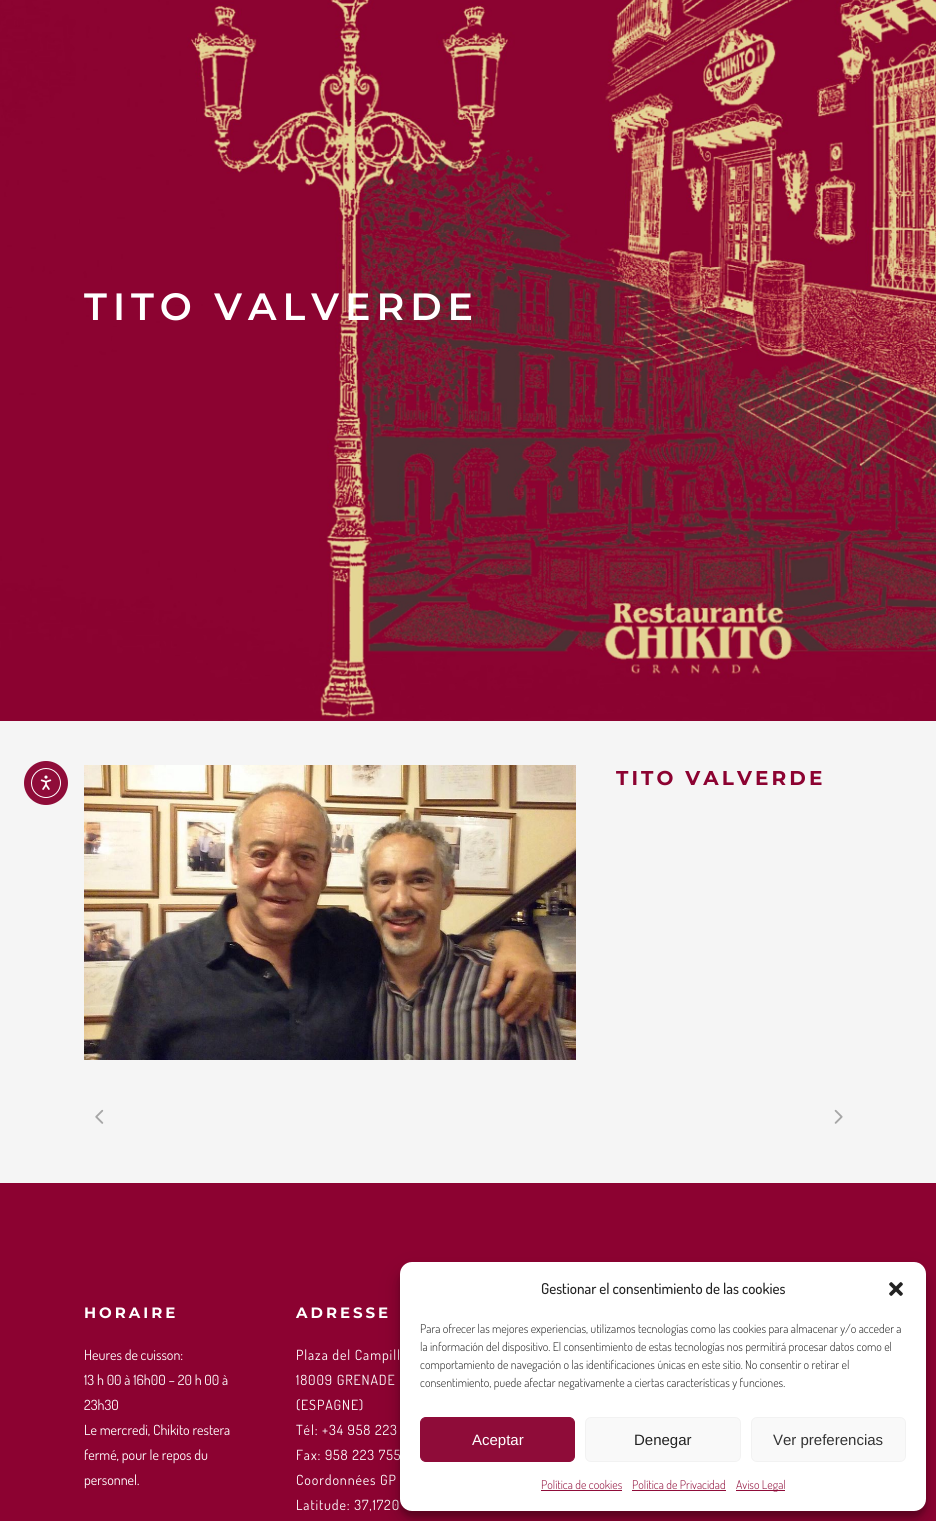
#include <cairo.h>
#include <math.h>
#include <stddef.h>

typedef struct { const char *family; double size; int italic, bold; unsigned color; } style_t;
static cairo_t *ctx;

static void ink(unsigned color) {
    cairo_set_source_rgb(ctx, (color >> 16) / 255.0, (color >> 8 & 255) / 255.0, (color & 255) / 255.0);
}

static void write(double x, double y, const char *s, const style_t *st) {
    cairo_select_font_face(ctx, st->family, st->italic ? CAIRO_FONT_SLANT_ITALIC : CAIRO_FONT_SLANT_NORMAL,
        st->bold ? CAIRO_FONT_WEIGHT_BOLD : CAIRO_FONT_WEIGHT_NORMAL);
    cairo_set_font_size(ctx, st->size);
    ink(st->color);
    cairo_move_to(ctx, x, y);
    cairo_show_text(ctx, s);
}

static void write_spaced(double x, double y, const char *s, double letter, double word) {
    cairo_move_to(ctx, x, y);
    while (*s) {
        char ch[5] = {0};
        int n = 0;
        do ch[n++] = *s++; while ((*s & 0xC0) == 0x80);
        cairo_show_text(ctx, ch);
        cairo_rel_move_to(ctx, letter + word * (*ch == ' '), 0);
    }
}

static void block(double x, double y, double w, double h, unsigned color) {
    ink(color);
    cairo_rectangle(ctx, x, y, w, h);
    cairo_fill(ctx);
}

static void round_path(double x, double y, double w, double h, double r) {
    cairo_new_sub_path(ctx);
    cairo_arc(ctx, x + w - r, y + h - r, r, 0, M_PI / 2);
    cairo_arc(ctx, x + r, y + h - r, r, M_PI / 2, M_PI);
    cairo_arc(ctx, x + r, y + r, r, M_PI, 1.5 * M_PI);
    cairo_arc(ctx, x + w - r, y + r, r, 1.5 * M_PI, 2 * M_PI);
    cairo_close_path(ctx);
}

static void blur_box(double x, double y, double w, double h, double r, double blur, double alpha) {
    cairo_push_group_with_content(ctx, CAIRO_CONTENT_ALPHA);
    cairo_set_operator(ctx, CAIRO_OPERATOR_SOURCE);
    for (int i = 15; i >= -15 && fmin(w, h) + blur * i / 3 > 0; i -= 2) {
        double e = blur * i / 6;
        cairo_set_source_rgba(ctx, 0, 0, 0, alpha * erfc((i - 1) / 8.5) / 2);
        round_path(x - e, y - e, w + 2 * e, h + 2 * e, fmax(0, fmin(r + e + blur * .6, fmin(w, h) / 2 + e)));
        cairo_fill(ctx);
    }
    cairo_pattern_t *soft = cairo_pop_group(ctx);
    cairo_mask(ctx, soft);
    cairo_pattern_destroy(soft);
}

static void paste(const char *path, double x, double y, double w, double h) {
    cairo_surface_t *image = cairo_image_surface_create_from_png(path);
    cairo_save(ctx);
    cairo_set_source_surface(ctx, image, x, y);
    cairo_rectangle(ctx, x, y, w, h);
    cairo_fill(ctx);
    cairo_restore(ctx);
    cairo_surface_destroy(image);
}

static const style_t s1 = {"Dosis", 14, 0, 0, 0xffffff};
static const style_t s2 = {"Dosis Medium", 15, 0, 0, 0x222222};
static const style_t s3 = {"Dosis Light", 12, 0, 0, 0x222222};
static const style_t s4 = {"Liberation Sans", 15, 0, 0, 0xffffff};
static const style_t s5 = {"Liberation Sans", 15, 0, 0, 0x222222};
static const style_t s6 = {"Liberation Sans", 15, 0, 0, 0x333333};
static const style_t s7 = {"Dosis Light", 12, 0, 0, 0x8f0c39};

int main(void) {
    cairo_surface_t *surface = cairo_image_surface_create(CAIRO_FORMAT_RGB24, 936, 1521);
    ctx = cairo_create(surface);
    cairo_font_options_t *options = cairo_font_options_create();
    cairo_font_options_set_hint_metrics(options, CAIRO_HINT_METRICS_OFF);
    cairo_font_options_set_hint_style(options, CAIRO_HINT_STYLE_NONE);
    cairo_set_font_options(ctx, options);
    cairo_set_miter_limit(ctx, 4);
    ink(0xf5f5f5);
    cairo_paint(ctx);
    ink(0x8f0c39);
    cairo_arc(ctx, 46, 783, 22, 0, 2 * M_PI);
    cairo_fill(ctx);
    cairo_arc(ctx, 46, 783, 14.5, 0, 2 * M_PI);
    ink(0xffffff);
    cairo_set_line_width(ctx, 1);
    cairo_stroke(ctx);
    paste("pic1.png", 40, 775, 12, 15);
    paste("pic2.png", 0, 0, 936, 721);
    cairo_select_font_face(ctx, "Montserrat SemiBold", CAIRO_FONT_SLANT_NORMAL, CAIRO_FONT_WEIGHT_NORMAL);
    cairo_set_font_size(ctx, 38);
    write_spaced(84, 320, "TITO VALVERDE", 6, 0);
    paste("pic3.png", 84, 765, 492, 295);
    cairo_select_font_face(ctx, "Montserrat", CAIRO_FONT_SLANT_NORMAL, CAIRO_FONT_WEIGHT_BOLD);
    cairo_set_font_size(ctx, 20);
    ink(0x8c0231);
    write_spaced(616, 785, "TITO VALVERDE", 3.1, 0);
    paste("pic4.png", 95, 1109, 9, 15);
    paste("pic5.png", 834, 1109, 9, 15);
    block(0, 1183, 936, 338, 0x8c0231);
    cairo_set_font_size(ctx, 15);
    ink(0xffffff);
    write_spaced(84, 1318, "HORAIRE", 3, 0);
    write(84, 1360, "Heures de cuisson:", &s1);
    write(84, 1385, "13 h 00 à 16h00 – 20 h 00 à", &s1);
    write(84, 1410, "23h30", &s1);
    write(84, 1435, "Le mercredi, Chikito restera", &s1);
    write(84, 1460, "fermé, pour le repos du", &s1);
    write(84, 1485, "personnel.", &s1);
    cairo_select_font_face(ctx, "Montserrat", CAIRO_FONT_SLANT_NORMAL, CAIRO_FONT_WEIGHT_BOLD);
    cairo_set_font_size(ctx, 15);
    write_spaced(296, 1318, "ADRESSE", 3, 0);
    cairo_select_font_face(ctx, "Dosis", CAIRO_FONT_SLANT_NORMAL, CAIRO_FONT_WEIGHT_NORMAL);
    cairo_set_font_size(ctx, 14);
    write_spaced(296, 1360, "Plaza del Campill", 0.9, 0);
    write_spaced(296, 1385, "18009 GRENADE", 0.9, 0);
    write_spaced(296, 1410, "(ESPAGNE)", 0.9, 0);
    write_spaced(296, 1435, "Tél: +34 958 223", 0.9, 0);
    write_spaced(296, 1460, "Fax: 958 223 755", 0.9, 0);
    write_spaced(296, 1485, "Coordonnées GP", 0.9, 0);
    write_spaced(296, 1510, "Latitude: 37,1720", 0.9, 0);
    ink(0x000000);
    blur_box(400, 1268, 526, 249, 12, 3, 0.23);
    blur_box(400, 1272, 526, 249, 12, 10, 0.19);
    ink(0xffffff);
    round_path(400, 1262, 526, 249, 12);
    cairo_fill(ctx);
    write(541, 1294, "Gestionar el consentimiento de las cookies", &s2);
    paste("pic6.png", 889, 1282, 14, 14);
    write(420, 1333, "Para ofrecer las mejores experiencias, utilizamos tecnologías como las cookies para almacenar y/o acceder a", &s3);
    write(420, 1351, "la información del dispositivo. El consentimiento de estas tecnologías nos permitirá procesar datos como el", &s3);
    write(420, 1369, "comportamiento de navegación o las identificaciones únicas en este sitio. No consentir o retirar el", &s3);
    write(420, 1387, "consentimiento, puede afectar negativamente a ciertas características y funciones.", &s3);
    ink(0x8f0c39);
    round_path(420.5, 1417.5, 154, 44, 5.5);
    cairo_fill_preserve(ctx);
    cairo_stroke(ctx);
    write(472, 1445, "Aceptar", &s4);
    ink(0xf9f9f9);
    round_path(585.5, 1417.5, 155, 44, 5.5);
    cairo_fill_preserve(ctx);
    ink(0xf2f2f2);
    cairo_stroke(ctx);
    write(634, 1445, "Denegar", &s5);
    ink(0xf9f9f9);
    round_path(751.5, 1417.5, 154, 44, 5.5);
    cairo_fill_preserve(ctx);
    ink(0xf2f2f2);
    cairo_stroke(ctx);
    write(773, 1445, "Ver preferencias", &s6);
    write(541, 1489, "Política de cookies", &s7);
    block(541, 1490, 81, 1, 0x8f0c39);
    write(632, 1489, "Política de Privacidad", &s7);
    block(632, 1490, 94, 1, 0x8f0c39);
    block(736, 1490, 49, 1, 0x8f0c39);
    write(736, 1489, "Aviso Legal", &s7);
    cairo_surface_write_to_png(surface, "screenshot.png");
    cairo_font_options_destroy(options);
    cairo_destroy(ctx);
    cairo_surface_destroy(surface);
    return 0;
}
